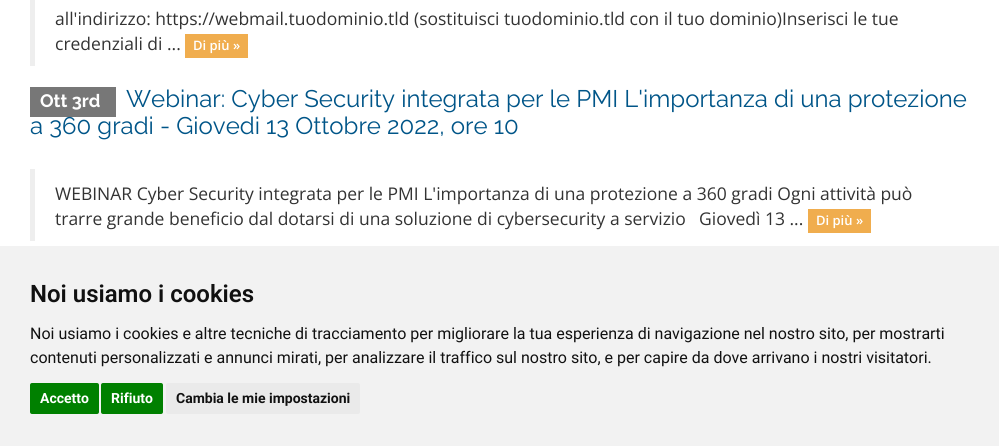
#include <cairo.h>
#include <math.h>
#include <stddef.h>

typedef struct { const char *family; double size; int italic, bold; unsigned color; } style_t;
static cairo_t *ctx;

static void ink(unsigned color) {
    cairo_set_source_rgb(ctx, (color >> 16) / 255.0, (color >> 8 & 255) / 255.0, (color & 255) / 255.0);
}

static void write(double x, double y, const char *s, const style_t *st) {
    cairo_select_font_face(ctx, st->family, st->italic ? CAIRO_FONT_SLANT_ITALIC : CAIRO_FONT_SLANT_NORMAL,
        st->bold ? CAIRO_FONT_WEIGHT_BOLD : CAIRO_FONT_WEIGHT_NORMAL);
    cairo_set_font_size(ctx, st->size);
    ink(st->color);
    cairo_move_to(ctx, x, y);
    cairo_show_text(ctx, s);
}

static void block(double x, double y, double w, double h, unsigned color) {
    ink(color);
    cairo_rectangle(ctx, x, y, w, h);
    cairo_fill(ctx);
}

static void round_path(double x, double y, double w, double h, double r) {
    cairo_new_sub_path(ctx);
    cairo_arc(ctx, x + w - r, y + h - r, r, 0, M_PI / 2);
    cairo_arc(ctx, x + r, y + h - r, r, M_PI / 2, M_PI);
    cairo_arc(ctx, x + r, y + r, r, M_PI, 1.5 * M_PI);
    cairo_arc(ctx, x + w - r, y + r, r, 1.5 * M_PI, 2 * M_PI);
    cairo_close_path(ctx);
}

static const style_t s1 = {"Open Sans", 17.5, 0, 0, 0x333333};
static const style_t s2 = {"Open Sans SemiBold", 13, 0, 0, 0xffffff};
static const style_t s3 = {"Raleway", 18, 0, 1, 0xffffff};
static const style_t s4 = {"Raleway", 24, 0, 0, 0x005588};
static const style_t s5 = {"Roboto SemiBold", 24, 0, 0, 0x111111};
static const style_t s6 = {"Roboto", 16, 0, 0, 0x111111};
static const style_t s7 = {"Roboto", 14, 0, 1, 0xffffff};
static const style_t s8 = {"Roboto", 14, 0, 1, 0x111111};

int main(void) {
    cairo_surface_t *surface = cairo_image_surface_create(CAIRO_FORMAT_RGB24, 999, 446);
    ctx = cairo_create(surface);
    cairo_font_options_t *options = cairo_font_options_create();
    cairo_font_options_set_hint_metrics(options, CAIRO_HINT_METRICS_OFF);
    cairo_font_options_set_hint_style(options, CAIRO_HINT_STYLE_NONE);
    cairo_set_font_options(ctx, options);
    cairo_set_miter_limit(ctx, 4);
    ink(0xffffff);
    cairo_paint(ctx);
    block(30, 0, 5, 66, 0xeeeeee);
    write(55, 25, "all'indirizzo: https://webmail.tuodominio.tld (sostituisci tuodominio.tld con il tuo dominio)Inserisci le tue", &s1);
    write(55, 50, "credenziali di ...", &s1);
    block(185, 34, 63, 24, 0xf0ad4e);
    write(193, 50, "Di più »", &s2);
    block(30, 87, 86, 30, 0x777777);
    write(40, 107, "Ott 3rd", &s3);
    write(126, 107, "Webinar: Cyber Security integrata per le PMI L'importanza di una protezione", &s4);
    write(30, 134, "a 360 gradi - Giovedi 13 Ottobre 2022, ore 10", &s4);
    block(30, 169, 5, 72, 0xeeeeee);
    write(55, 200, "WEBINAR Cyber Security integrata per le PMI L'importanza di una protezione a 360 gradi Ogni attività può", &s1);
    write(55, 225, "trarre grande beneficio dal dotarsi di una soluzione di cybersecurity a servizio", &s1);
    write(699, 225, "Giovedì 13 ...", &s1);
    block(808, 209, 63, 24, 0xf0ad4e);
    write(816, 225, "Di più »", &s2);
    block(0, 246, 999, 200, 0xf2f2f2);
    write(30, 302, "Noi usiamo i cookies", &s5);
    write(30, 339, "Noi usiamo i cookies e altre tecniche di tracciamento per migliorare la tua esperienza di navigazione nel nostro sito, per mostrarti", &s6);
    write(30, 363, "contenuti personalizzati e annunci mirati, per analizzare il traffico sul nostro sito, e per capire da dove arrivano i nostri visitatori.", &s6);
    ink(0x008000);
    round_path(30, 383, 69, 31, 2);
    cairo_fill(ctx);
    write(40, 403, "Accetto", &s7);
    ink(0x008000);
    round_path(101, 383, 62, 31, 2);
    cairo_fill(ctx);
    write(111, 403, "Rifiuto", &s7);
    ink(0xeaeaea);
    round_path(166, 383, 194, 31, 2);
    cairo_fill(ctx);
    write(176, 403, "Cambia le mie impostazioni", &s8);
    cairo_surface_write_to_png(surface, "screenshot.png");
    cairo_font_options_destroy(options);
    cairo_destroy(ctx);
    cairo_surface_destroy(surface);
    return 0;
}
